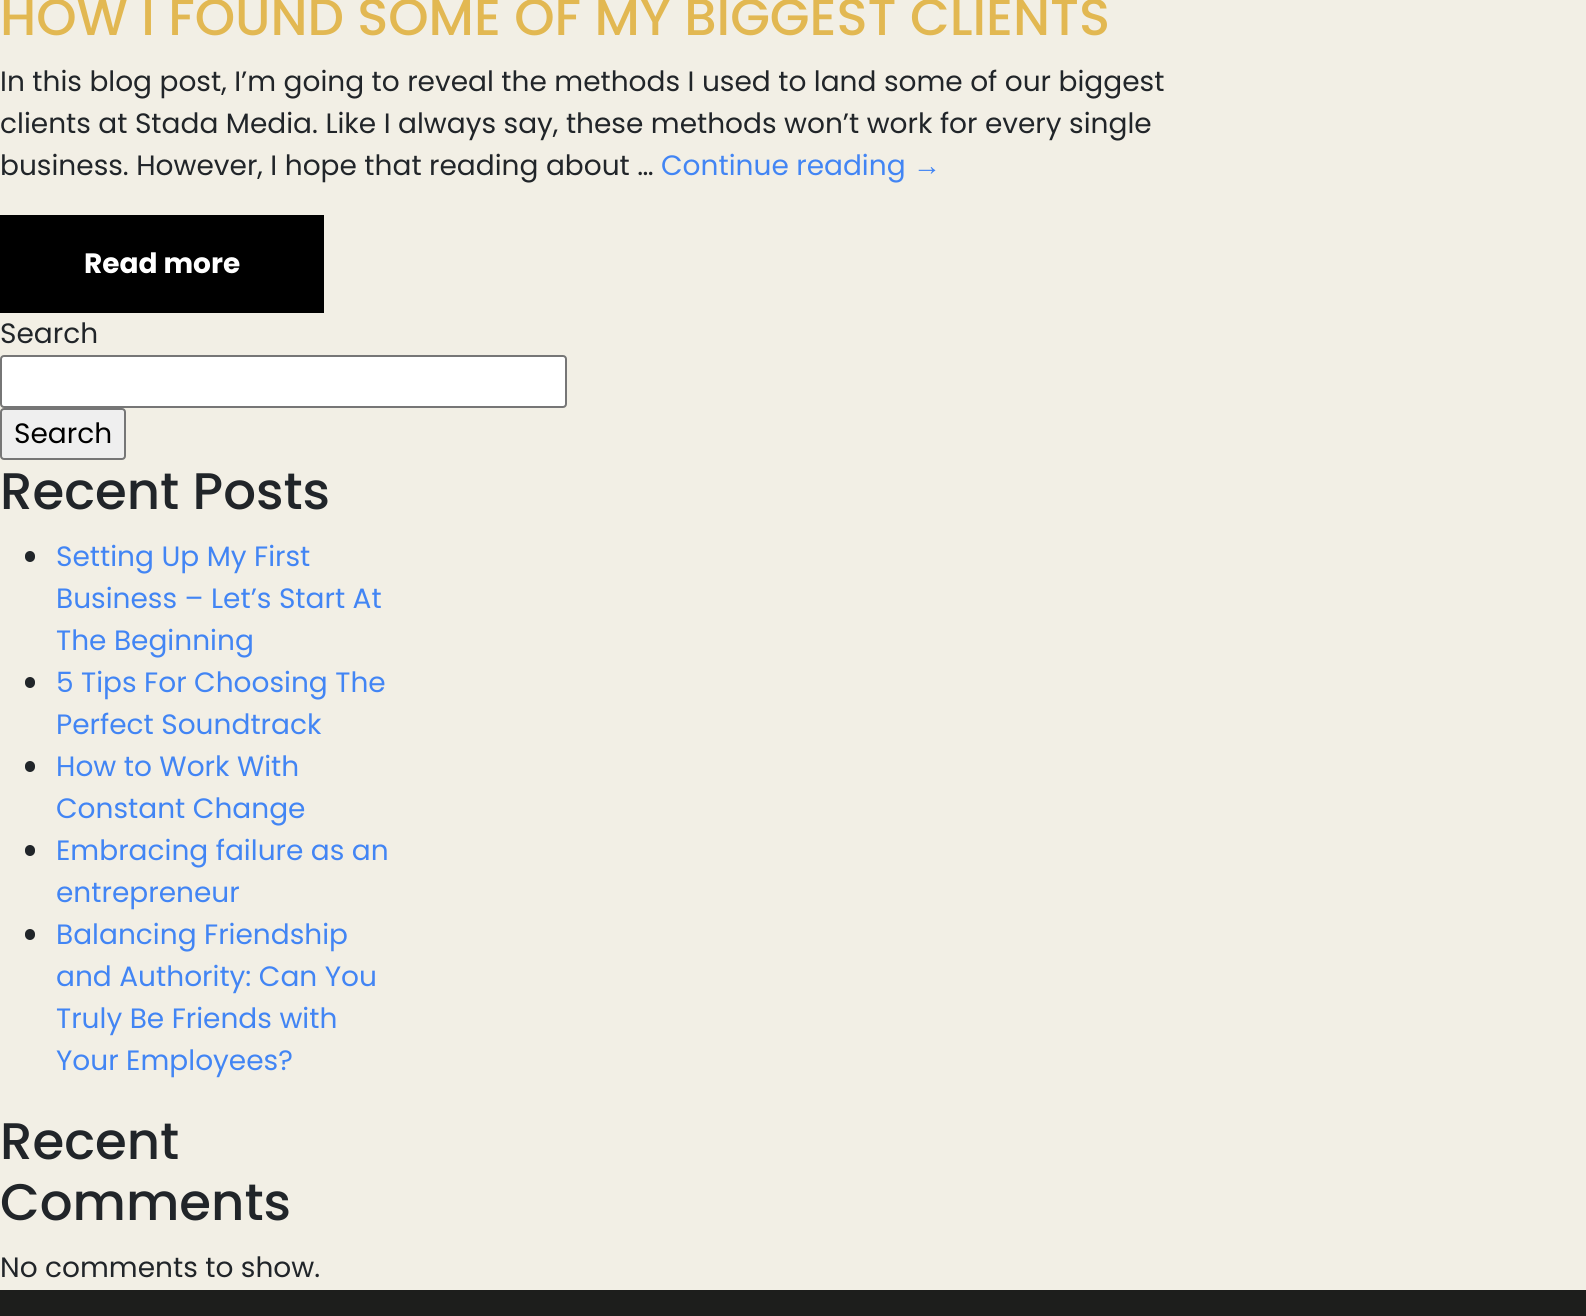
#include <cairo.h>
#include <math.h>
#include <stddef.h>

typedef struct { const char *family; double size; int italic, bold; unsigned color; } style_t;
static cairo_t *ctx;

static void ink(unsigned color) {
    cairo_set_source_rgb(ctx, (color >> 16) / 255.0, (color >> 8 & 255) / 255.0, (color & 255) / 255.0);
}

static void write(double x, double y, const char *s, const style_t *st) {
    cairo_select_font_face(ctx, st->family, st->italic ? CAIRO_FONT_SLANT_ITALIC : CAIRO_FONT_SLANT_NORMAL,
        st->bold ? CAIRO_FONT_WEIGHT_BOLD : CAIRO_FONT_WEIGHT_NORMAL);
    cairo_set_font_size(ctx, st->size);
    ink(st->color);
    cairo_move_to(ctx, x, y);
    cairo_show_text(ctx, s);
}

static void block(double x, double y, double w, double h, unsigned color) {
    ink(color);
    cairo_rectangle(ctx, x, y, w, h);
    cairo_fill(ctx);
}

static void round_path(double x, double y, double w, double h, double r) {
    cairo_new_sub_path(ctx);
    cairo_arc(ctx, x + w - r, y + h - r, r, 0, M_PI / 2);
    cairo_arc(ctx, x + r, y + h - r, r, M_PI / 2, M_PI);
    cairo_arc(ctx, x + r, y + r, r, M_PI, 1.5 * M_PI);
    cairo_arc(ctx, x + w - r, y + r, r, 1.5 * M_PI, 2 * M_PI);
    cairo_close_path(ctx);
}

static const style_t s1 = {"Poppins Medium", 51.4, 0, 0, 0xe2b852};
static const style_t s2 = {"Poppins", 28, 0, 0, 0x212529};
static const style_t s3 = {"Poppins", 28, 0, 0, 0x4285f4};
static const style_t s4 = {"Liberation Sans", 28, 0, 0, 0x4285f4};
static const style_t s5 = {"Poppins", 28, 0, 1, 0xffffff};
static const style_t s6 = {"Poppins", 28, 0, 0, 0x000000};
static const style_t s7 = {"Poppins Medium", 51.4, 0, 0, 0x212529};

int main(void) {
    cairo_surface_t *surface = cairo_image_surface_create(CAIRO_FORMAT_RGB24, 1586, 1316);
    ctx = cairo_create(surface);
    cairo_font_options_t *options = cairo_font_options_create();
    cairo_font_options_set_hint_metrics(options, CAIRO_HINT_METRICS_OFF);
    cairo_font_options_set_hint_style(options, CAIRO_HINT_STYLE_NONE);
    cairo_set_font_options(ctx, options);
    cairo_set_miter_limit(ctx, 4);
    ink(0xf2efe5);
    cairo_paint(ctx);
    write(0, 35, "HOW I FOUND SOME OF MY BIGGEST CLIENTS", &s1);
    write(0, 91, "In this blog post, I’m going to reveal the methods I used to land some of our biggest", &s2);
    write(0, 133, "clients at Stada Media. Like I always say, these methods won’t work for every single", &s2);
    write(0, 175, "business. However, I hope that reading about …", &s2);
    write(661, 175, "Continue reading", &s3);
    write(913, 175, "→", &s4);
    block(0, 215, 324, 98, 0x000000);
    write(84, 273, "Read more", &s5);
    write(0, 343, "Search", &s2);
    ink(0xffffff);
    round_path(1, 356, 565, 51, 3);
    cairo_fill_preserve(ctx);
    ink(0x767676);
    cairo_stroke(ctx);
    ink(0xefefef);
    round_path(1, 409, 124, 50, 3);
    cairo_fill_preserve(ctx);
    ink(0x767676);
    cairo_stroke(ctx);
    write(14, 443, "Search", &s6);
    write(0, 509, "Recent Posts", &s7);
    round_path(25, 551, 10, 11, 5);
    cairo_fill(ctx);
    write(56, 566, "Setting Up My First", &s3);
    write(56, 608, "Business – Let’s Start At", &s3);
    write(56, 650, "The Beginning", &s3);
    ink(0x212529);
    round_path(25, 677, 10, 11, 5);
    cairo_fill(ctx);
    write(56, 692, "5 Tips For Choosing The", &s3);
    write(56, 734, "Perfect Soundtrack", &s3);
    ink(0x212529);
    round_path(25, 761, 10, 11, 5);
    cairo_fill(ctx);
    write(56, 776, "How to Work With", &s3);
    write(56, 818, "Constant Change", &s3);
    ink(0x212529);
    round_path(25, 845, 10, 11, 5);
    cairo_fill(ctx);
    write(56, 860, "Embracing failure as an", &s3);
    write(56, 902, "entrepreneur", &s3);
    ink(0x212529);
    round_path(25, 929, 10, 11, 5);
    cairo_fill(ctx);
    write(56, 944, "Balancing Friendship", &s3);
    write(56, 986, "and Authority: Can You", &s3);
    write(56, 1028, "Truly Be Friends with", &s3);
    write(56, 1070, "Your Employees?", &s3);
    write(0, 1159, "Recent", &s7);
    write(0, 1220, "Comments", &s7);
    write(0, 1277, "No comments to show.", &s2);
    block(0, 1290, 1586, 26, 0x1d1e1c);
    cairo_surface_write_to_png(surface, "screenshot.png");
    cairo_font_options_destroy(options);
    cairo_destroy(ctx);
    cairo_surface_destroy(surface);
    return 0;
}
